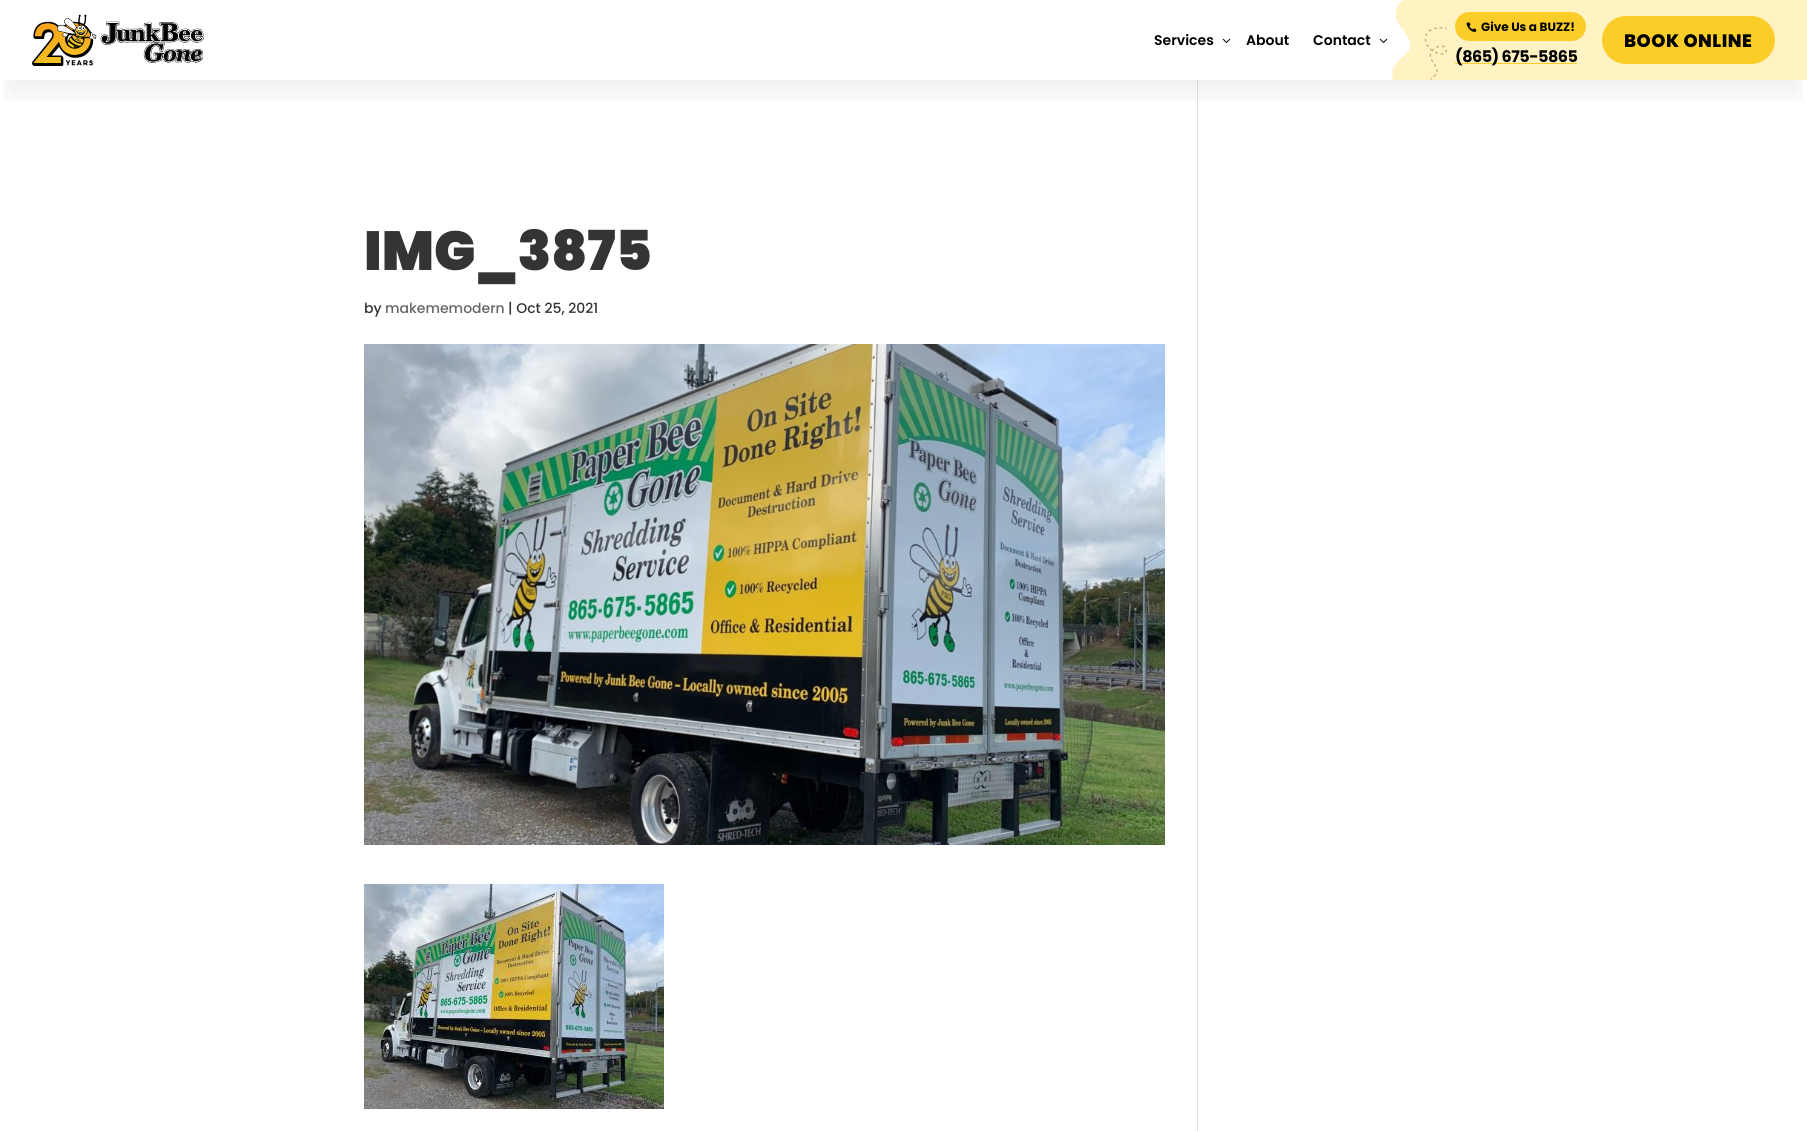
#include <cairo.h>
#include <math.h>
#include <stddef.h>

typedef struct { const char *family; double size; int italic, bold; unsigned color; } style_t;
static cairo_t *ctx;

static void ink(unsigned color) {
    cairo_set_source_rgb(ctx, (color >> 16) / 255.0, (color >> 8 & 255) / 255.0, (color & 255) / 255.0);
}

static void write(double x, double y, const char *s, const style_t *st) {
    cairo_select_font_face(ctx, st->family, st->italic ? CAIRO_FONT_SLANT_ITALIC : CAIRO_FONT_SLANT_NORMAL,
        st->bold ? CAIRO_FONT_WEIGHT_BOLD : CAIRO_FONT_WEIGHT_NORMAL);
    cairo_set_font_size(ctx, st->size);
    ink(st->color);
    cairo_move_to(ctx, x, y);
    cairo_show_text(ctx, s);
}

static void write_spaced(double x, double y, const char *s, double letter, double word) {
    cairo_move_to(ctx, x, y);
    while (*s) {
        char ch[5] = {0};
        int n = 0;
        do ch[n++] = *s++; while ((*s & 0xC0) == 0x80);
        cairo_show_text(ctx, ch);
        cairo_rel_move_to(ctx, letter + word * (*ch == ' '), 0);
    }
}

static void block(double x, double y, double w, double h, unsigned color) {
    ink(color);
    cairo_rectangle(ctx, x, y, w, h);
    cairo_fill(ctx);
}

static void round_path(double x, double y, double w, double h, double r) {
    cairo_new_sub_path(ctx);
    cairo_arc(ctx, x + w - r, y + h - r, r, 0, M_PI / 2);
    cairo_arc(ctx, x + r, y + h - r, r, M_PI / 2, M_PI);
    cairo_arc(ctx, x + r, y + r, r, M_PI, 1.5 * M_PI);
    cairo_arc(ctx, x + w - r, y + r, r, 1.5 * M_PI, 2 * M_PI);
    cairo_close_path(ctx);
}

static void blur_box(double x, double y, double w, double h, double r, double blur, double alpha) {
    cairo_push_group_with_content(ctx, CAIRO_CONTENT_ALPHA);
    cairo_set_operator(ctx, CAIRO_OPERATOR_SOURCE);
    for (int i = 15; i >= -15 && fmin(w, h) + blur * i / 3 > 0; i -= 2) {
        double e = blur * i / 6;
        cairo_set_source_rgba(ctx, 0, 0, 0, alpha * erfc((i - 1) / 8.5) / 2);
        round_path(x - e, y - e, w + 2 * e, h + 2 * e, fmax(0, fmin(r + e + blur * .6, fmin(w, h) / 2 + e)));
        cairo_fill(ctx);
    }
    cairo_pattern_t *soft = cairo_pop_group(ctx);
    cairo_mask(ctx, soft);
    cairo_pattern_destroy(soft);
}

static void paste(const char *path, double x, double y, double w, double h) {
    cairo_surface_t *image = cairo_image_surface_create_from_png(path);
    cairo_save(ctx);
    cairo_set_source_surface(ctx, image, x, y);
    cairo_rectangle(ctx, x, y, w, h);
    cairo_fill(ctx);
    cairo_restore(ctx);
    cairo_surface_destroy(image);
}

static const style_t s1 = {"Poppins SemiBold", 14, 0, 0, 0x000000};
static const style_t s2 = {"Poppins", 12, 0, 1, 0x000000};
static const style_t s3 = {"Poppins Black", 55, 0, 0, 0x343434};
static const style_t s4 = {"Poppins Medium", 14, 0, 0, 0x343434};
static const style_t s5 = {"Poppins Medium", 14, 0, 0, 0x666666};

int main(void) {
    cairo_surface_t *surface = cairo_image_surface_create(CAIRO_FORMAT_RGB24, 1807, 1131);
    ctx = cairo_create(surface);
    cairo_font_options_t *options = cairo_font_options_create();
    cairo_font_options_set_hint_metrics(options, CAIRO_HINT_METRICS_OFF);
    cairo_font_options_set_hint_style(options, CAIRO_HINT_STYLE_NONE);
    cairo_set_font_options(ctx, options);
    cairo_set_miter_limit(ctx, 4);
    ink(0xffffff);
    cairo_paint(ctx);
    block(1197, 80, 1, 1051, 0xe2e2e2);
    cairo_save(ctx);
    cairo_rectangle(ctx, 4, 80, 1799, 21);
    cairo_clip(ctx);
    ink(0x000000);
    blur_box(10, 30, 1787, 60, 0, 16, 0.08);
    cairo_restore(ctx);
    paste("pic1.png", 32, 14, 172, 52);
    write(1154, 45, "Services", &s1);
    paste("pic2.png", 1222, 38, 9, 5);
    write(1246, 45, "About", &s1);
    write(1313, 45, "Contact", &s1);
    paste("pic2.png", 1379, 38, 9, 5);
    block(1392, 0, 415, 80, 0xfff2c3);
    ink(0xffffff);
    cairo_set_fill_rule(ctx, CAIRO_FILL_RULE_EVEN_ODD);
    cairo_new_path(ctx);
    cairo_move_to(ctx, 1404, 0);
    cairo_line_to(ctx, 1391, 0);
    cairo_line_to(ctx, 1391, 80);
    cairo_line_to(ctx, 1393, 80);
    cairo_curve_to(ctx, 1387, 60, 1412, 57, 1410, 44);
    cairo_curve_to(ctx, 1409, 32, 1391, 23, 1397, 8);
    cairo_curve_to(ctx, 1398, 4, 1401, 2, 1404, 0);
    cairo_close_path(ctx);
    cairo_fill(ctx);
    paste("pic3.png", 1424, 27, 23, 53);
    ink(0xfbcd28);
    round_path(1456, 13, 129, 27, 13.5);
    cairo_fill_preserve(ctx);
    cairo_stroke(ctx);
    paste("pic4.png", 1466, 22, 11, 11);
    write(1481, 31, "Give Us a BUZZ!", &s2);
    block(1455, 63, 122, 1, 0xfbcd29);
    cairo_set_font_size(ctx, 16);
    ink(0x000000);
    write_spaced(1455, 62, "(865) 675-5865", -0.5, 0);
    ink(0xfbcd29);
    round_path(1603, 17, 171, 46, 23);
    cairo_fill_preserve(ctx);
    cairo_stroke(ctx);
    cairo_select_font_face(ctx, "Poppins ExtraBold", CAIRO_FONT_SLANT_NORMAL, CAIRO_FONT_WEIGHT_NORMAL);
    cairo_set_font_size(ctx, 18);
    ink(0x000000);
    write_spaced(1624, 47, "BOOK ONLINE", 0.5, 0);
    write(364, 270, "IMG_3875", &s3);
    write(364, 313, "by", &s4);
    write(385, 313, "makememodern", &s5);
    write(508, 313, "| Oct 25, 2021", &s4);
    paste("pic5.png", 364, 344, 801, 501);
    paste("pic6.png", 364, 884, 300, 225);
    cairo_surface_write_to_png(surface, "screenshot.png");
    cairo_font_options_destroy(options);
    cairo_destroy(ctx);
    cairo_surface_destroy(surface);
    return 0;
}
